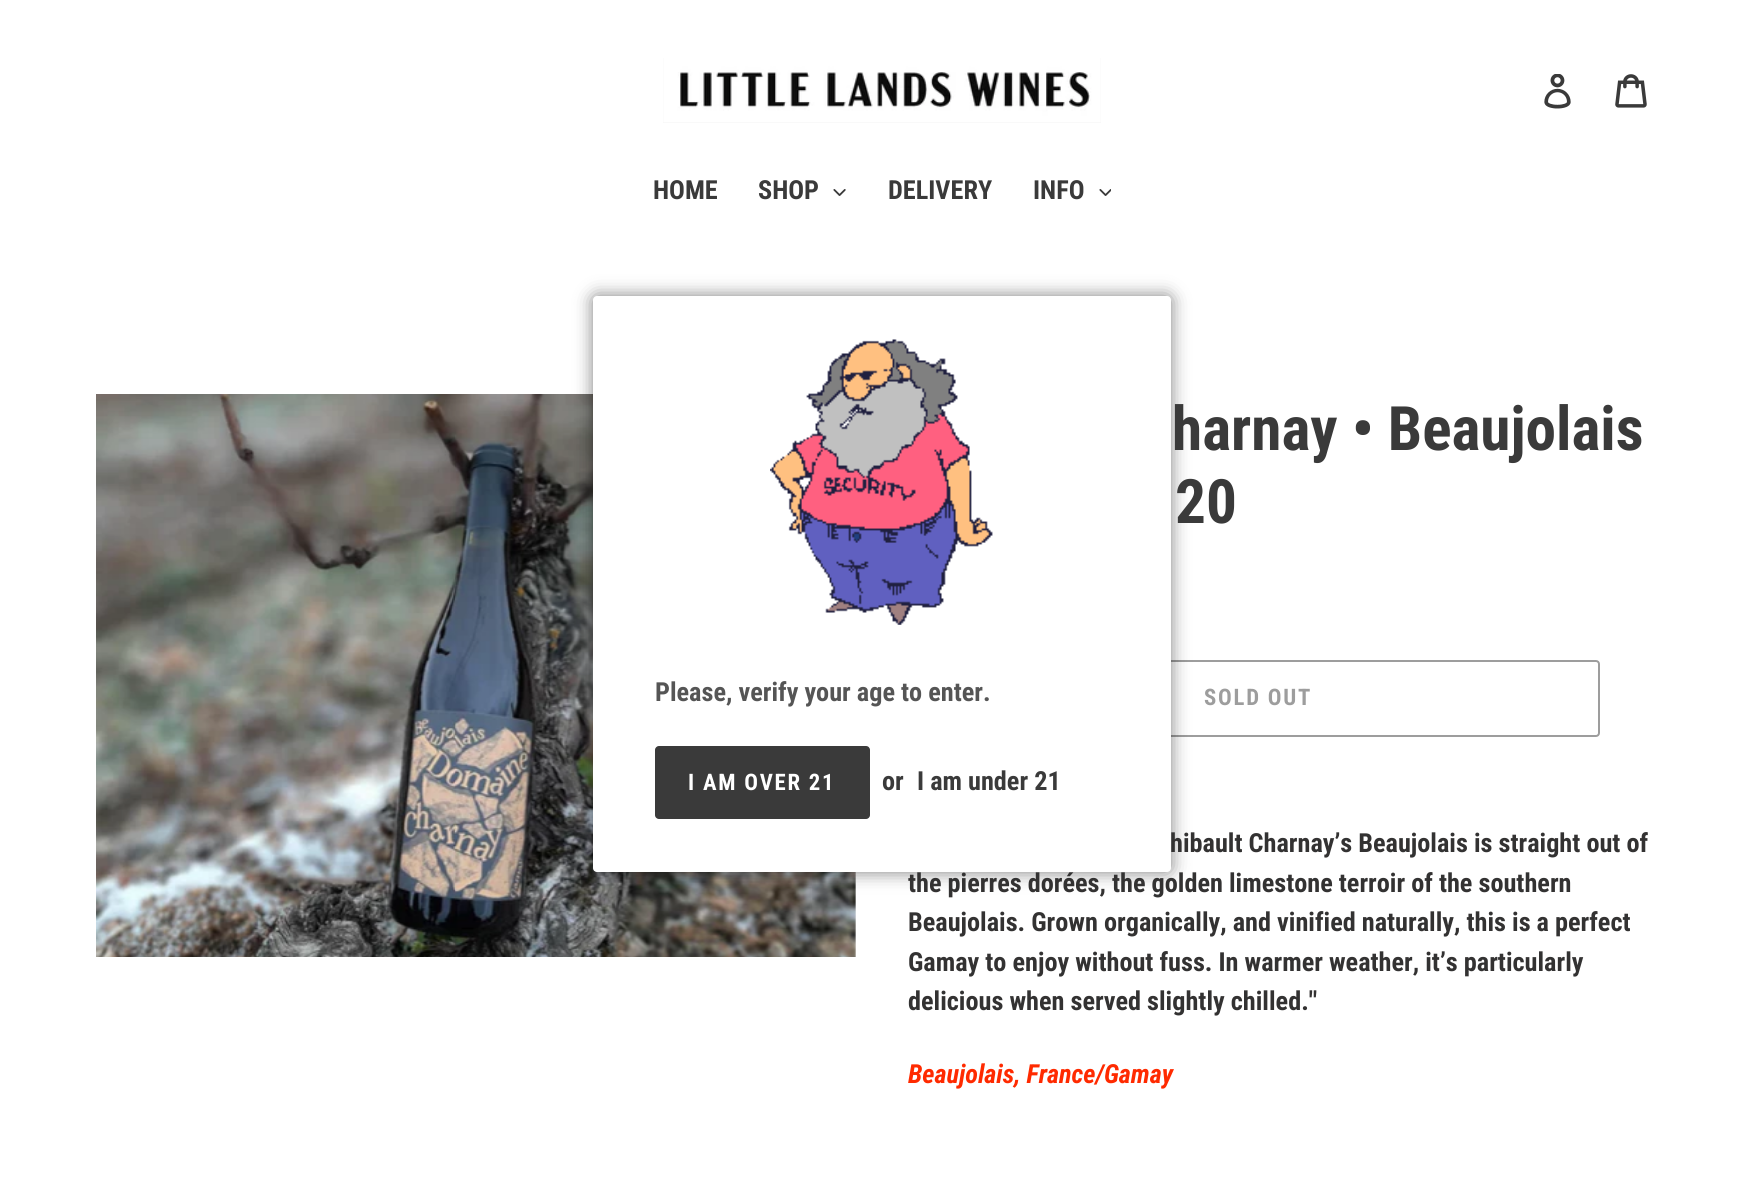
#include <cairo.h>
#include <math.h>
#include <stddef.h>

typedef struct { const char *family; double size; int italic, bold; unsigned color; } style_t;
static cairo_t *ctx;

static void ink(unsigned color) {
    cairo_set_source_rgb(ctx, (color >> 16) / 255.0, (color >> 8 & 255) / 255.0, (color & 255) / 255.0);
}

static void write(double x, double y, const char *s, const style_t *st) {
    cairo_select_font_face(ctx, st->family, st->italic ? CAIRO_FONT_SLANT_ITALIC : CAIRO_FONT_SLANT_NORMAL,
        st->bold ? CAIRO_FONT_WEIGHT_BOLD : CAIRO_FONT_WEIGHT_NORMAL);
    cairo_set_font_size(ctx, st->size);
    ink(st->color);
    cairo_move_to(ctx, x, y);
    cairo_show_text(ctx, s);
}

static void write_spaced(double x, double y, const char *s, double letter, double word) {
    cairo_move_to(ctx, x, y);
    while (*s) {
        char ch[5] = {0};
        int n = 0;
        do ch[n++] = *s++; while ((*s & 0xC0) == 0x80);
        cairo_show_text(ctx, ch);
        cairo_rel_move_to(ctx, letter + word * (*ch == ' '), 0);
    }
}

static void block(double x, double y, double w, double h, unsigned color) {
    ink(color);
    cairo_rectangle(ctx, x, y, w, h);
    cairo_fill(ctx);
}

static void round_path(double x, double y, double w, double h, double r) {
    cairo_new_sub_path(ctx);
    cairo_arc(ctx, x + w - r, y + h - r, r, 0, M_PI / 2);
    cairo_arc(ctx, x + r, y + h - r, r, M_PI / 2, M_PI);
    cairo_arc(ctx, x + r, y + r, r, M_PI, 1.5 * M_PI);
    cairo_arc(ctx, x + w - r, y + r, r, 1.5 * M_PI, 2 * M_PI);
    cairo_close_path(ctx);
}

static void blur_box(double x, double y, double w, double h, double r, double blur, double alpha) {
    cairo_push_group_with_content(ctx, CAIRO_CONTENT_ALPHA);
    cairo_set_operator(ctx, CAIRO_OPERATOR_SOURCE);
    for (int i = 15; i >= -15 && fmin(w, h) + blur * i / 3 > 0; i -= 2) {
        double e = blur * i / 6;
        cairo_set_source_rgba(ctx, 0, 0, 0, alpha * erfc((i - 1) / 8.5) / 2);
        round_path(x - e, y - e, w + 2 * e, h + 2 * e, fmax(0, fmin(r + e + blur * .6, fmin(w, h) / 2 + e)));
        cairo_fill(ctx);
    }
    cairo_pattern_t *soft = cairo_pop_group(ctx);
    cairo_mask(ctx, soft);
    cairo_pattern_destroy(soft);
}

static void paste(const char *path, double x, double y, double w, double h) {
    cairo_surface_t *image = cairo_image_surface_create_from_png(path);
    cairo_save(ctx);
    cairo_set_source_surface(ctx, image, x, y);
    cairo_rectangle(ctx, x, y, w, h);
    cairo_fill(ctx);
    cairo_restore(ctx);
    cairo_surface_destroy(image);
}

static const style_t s1 = {"Roboto Condensed", 26.25, 0, 1, 0x3a3a3a};
static const style_t s2 = {"Roboto Condensed", 26.25, 0, 1, 0x333232};
static const style_t s3 = {"Roboto Condensed", 26.25, 0, 1, 0x555555};
static const style_t s4 = {"Roboto Condensed", 61.25, 0, 1, 0x3a3a3a};
static const style_t s5 = {"Roboto Condensed", 26.25, 1, 1, 0xff2a00};

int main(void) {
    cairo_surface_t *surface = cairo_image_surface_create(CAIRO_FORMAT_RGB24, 1763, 1182);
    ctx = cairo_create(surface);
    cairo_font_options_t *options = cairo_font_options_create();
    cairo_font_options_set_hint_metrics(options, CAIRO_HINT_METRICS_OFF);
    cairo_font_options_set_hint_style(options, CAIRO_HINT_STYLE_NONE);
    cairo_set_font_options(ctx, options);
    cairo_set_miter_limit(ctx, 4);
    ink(0xffffff);
    cairo_paint(ctx);
    block(663, 58, 438, 65, 0xf3f3f3);
    paste("pic1.png", 663, 58, 438, 65);
    paste("pic2.png", 1544, 74, 27, 35);
    paste("pic3.png", 1615, 74, 32, 34);
    write(653, 199, "HOME", &s1);
    write(758, 199, "SHOP", &s1);
    paste("pic4.png", 833, 189, 13, 7);
    write(888, 199, "DELIVERY", &s1);
    write(1033, 199, "INFO", &s1);
    paste("pic5.png", 1099, 189, 12, 7);
    block(854, 872, 2, 85, 0xf4f4f4);
    paste("pic7.png", 96, 394, 760, 563);
    round_path(918, 661, 681, 75, 3);
    ink(0x9d9d9d);
    cairo_stroke(ctx);
    ink(0x000000);
    blur_box(593, 296, 578, 576, 4, 9, 0.5);
    write(1170, 852, "hibault Charnay’s Beaujolais is straight out of", &s2);
    ink(0xffffff);
    round_path(593, 296, 578, 576, 4);
    cairo_fill(ctx);
    paste("pic6.png", 770, 339, 223, 286);
    write(655, 701, "Please, verify your age to enter.", &s3);
    ink(0x3a3a3a);
    round_path(655, 746, 215, 73, 4);
    cairo_fill(ctx);
    cairo_set_font_size(ctx, 22.75);
    ink(0xffffff);
    write_spaced(688, 790, "I AM OVER 21", 1.75, 0);
    write(882, 790, "or", &s1);
    write(917, 790, "I am under 21", &s1);
    write(1172, 450, "harnay • Beaujolais", &s4);
    write(1175, 523, "20", &s4);
    cairo_set_font_size(ctx, 22.75);
    ink(0x9d9d9d);
    write_spaced(1204, 705, "SOLD OUT", 1.75, 0);
    write(908, 892, "the pierres dorées, the golden limestone terroir of the southern", &s2);
    write(908, 931, "Beaujolais. Grown organically, and vinified naturally, this is a perfect", &s2);
    write(908, 971, "Gamay to enjoy without fuss. In warmer weather, it’s particularly", &s2);
    write(908, 1010, "delicious when served slightly chilled.\"", &s2);
    write(908, 1083, "Beaujolais, France/Gamay", &s5);
    cairo_surface_write_to_png(surface, "screenshot.png");
    cairo_font_options_destroy(options);
    cairo_destroy(ctx);
    cairo_surface_destroy(surface);
    return 0;
}
